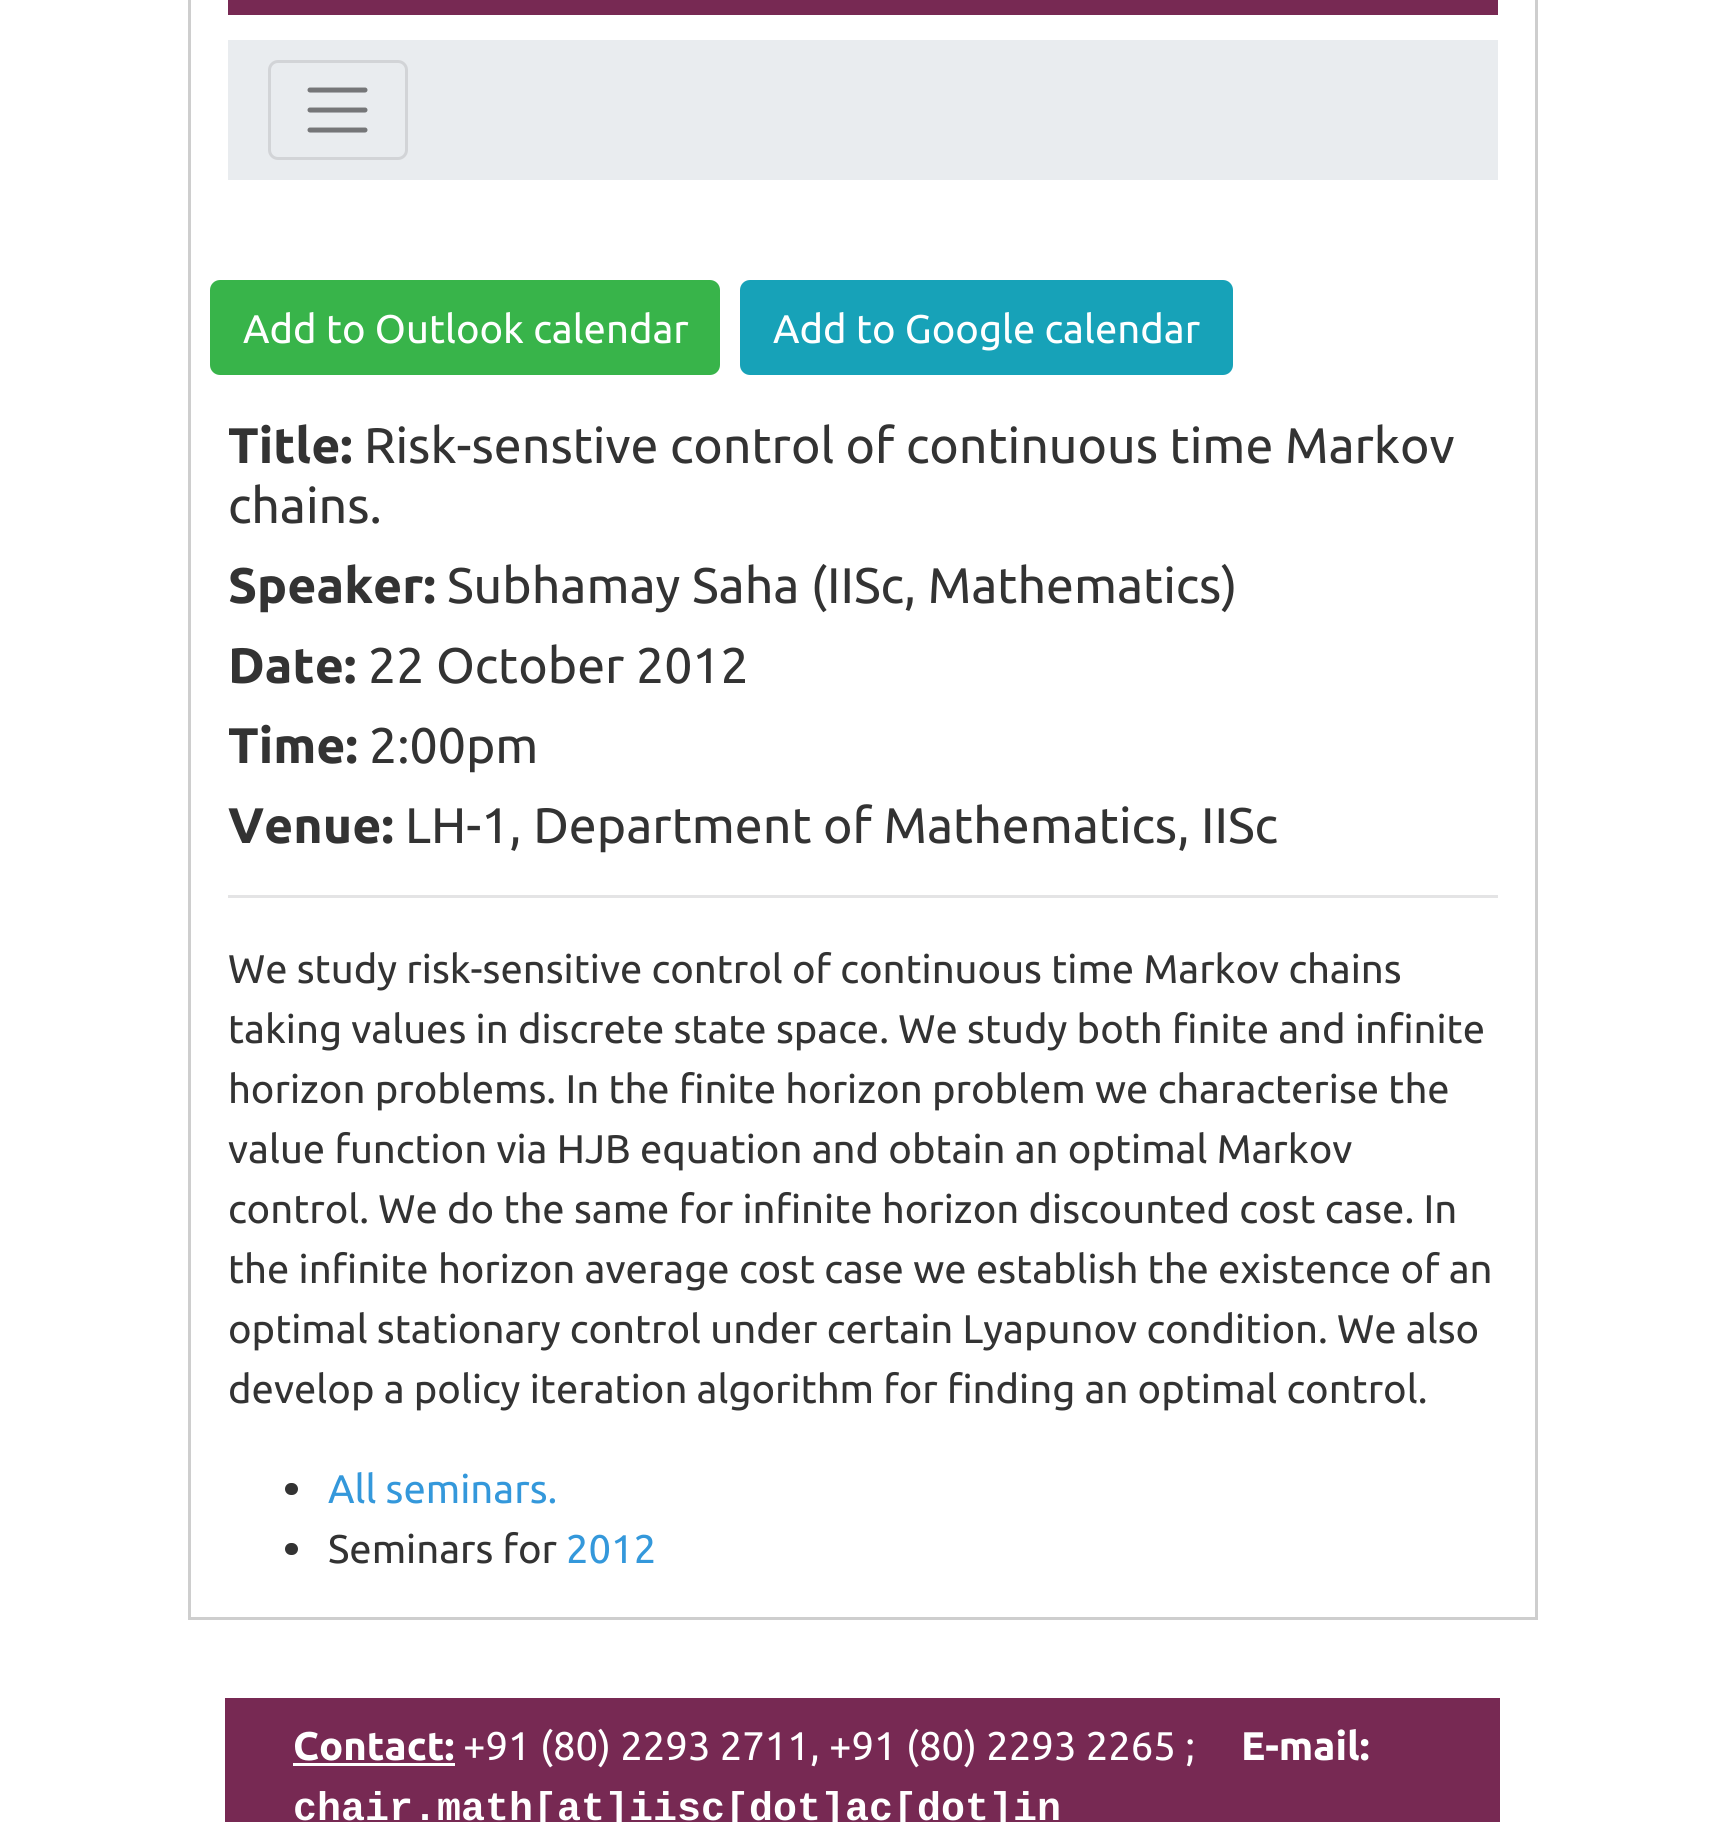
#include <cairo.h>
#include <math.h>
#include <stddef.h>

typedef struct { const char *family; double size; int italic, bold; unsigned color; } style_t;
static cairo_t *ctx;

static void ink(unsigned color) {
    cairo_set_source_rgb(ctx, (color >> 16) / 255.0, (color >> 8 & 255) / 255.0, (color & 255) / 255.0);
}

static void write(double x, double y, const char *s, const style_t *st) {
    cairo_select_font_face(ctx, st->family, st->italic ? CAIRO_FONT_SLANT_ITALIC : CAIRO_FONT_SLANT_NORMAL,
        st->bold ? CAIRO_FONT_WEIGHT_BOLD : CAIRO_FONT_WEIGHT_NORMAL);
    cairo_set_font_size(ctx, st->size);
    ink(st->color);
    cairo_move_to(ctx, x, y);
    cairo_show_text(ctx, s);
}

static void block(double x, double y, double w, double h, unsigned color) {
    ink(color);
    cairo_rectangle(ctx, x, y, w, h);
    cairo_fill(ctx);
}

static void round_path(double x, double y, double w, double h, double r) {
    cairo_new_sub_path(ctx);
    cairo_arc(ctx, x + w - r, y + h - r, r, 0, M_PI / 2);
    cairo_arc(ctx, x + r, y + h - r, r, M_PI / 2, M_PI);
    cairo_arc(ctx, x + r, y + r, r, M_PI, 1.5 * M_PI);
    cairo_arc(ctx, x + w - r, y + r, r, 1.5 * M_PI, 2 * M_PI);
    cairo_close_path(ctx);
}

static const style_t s1 = {"Ubuntu", 40, 0, 0, 0xffffff};
static const style_t s2 = {"Ubuntu", 50, 0, 1, 0x333333};
static const style_t s3 = {"Ubuntu", 50, 0, 0, 0x333333};
static const style_t s4 = {"Ubuntu", 40, 0, 0, 0x333333};
static const style_t s5 = {"Ubuntu", 40, 0, 0, 0x3498db};
static const style_t s6 = {"Ubuntu", 40, 0, 1, 0xffffff};
static const style_t s7 = {"Liberation Mono", 40, 0, 1, 0xffffff};

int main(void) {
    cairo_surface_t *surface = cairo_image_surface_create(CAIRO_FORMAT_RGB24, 1725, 1822);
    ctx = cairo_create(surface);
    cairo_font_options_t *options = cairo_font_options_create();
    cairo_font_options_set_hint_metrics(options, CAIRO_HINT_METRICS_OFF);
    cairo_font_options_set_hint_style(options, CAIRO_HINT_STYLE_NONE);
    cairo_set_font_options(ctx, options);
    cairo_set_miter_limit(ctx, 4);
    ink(0xffffff);
    cairo_paint(ctx);
    cairo_rectangle(ctx, 189.5, -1.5, 1347, 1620);
    ink(0xcecece);
    cairo_set_line_width(ctx, 3);
    cairo_stroke(ctx);
    block(228, 0, 1270, 15, 0x772953);
    block(228, 40, 1270, 140, 0xe9ecef);
    round_path(269.5, 61.5, 137, 97, 8.5);
    ink(0xd2d4d7);
    cairo_stroke(ctx);
    cairo_new_path(ctx);
    cairo_move_to(ctx, 310, 90);
    cairo_line_to(ctx, 365, 90);
    cairo_move_to(ctx, 310, 110);
    cairo_line_to(ctx, 365, 110);
    cairo_move_to(ctx, 310, 130);
    cairo_line_to(ctx, 365, 130);
    ink(0x757678);
    cairo_set_line_width(ctx, 5);
    cairo_set_line_cap(ctx, CAIRO_LINE_CAP_ROUND);
    cairo_stroke(ctx);
    ink(0x38b44a);
    round_path(211.5, 281.5, 507, 92, 8.5);
    cairo_fill_preserve(ctx);
    cairo_set_line_width(ctx, 3);
    cairo_set_line_cap(ctx, CAIRO_LINE_CAP_BUTT);
    cairo_stroke(ctx);
    write(243, 343, "Add to Outlook calendar", &s1);
    ink(0x17a2b8);
    round_path(741.5, 281.5, 490, 92, 8.5);
    cairo_fill_preserve(ctx);
    cairo_stroke(ctx);
    write(773, 343, "Add to Google calendar", &s1);
    write(228, 463, "Title:", &s2);
    write(364, 463, "Risk-senstive control of continuous time Markov", &s3);
    write(228, 523, "chains.", &s3);
    write(228, 603, "Speaker:", &s2);
    write(447, 603, "Subhamay Saha (IISc, Mathematics)", &s3);
    write(228, 683, "Date:", &s2);
    write(368, 683, "22 October 2012", &s3);
    write(228, 763, "Time:", &s2);
    write(369, 763, "2:00pm", &s3);
    write(228, 843, "Venue:", &s2);
    write(405, 843, "LH-1, Department of Mathematics, IISc", &s3);
    block(228, 895, 1270, 3, 0xe4e4e5);
    write(228, 983, "We study risk-sensitive control of continuous time Markov chains", &s4);
    write(228, 1043, "taking values in discrete state space. We study both finite and infinite", &s4);
    write(228, 1103, "horizon problems. In the finite horizon problem we characterise the", &s4);
    write(228, 1163, "value function via HJB equation and obtain an optimal Markov", &s4);
    write(228, 1223, "control. We do the same for infinite horizon discounted cost case. In", &s4);
    write(228, 1283, "the infinite horizon average cost case we establish the existence of an", &s4);
    write(228, 1343, "optimal stationary control under certain Lyapunov condition. We also", &s4);
    write(228, 1403, "develop a policy iteration algorithm for finding an optimal control.", &s4);
    round_path(285, 1483, 13, 12, 6);
    cairo_fill(ctx);
    write(328, 1503, "All seminars.", &s5);
    ink(0x333333);
    round_path(285, 1543, 13, 12, 6);
    cairo_fill(ctx);
    write(328, 1563, "Seminars for", &s4);
    write(566, 1563, "2012", &s5);
    block(225, 1698, 1275, 124, 0x772953);
    write(293, 1760, "Contact:", &s6);
    block(293, 1763, 162, 3, 0xffffff);
    write(463, 1760, "+91 (80) 2293 2711, +91 (80) 2293 2265 ;", &s1);
    write(1241, 1760, "E-mail:", &s6);
    write(293, 1820, "chair.math[at]iisc[dot]ac[dot]in", &s7);
    cairo_surface_write_to_png(surface, "screenshot.png");
    cairo_font_options_destroy(options);
    cairo_destroy(ctx);
    cairo_surface_destroy(surface);
    return 0;
}
